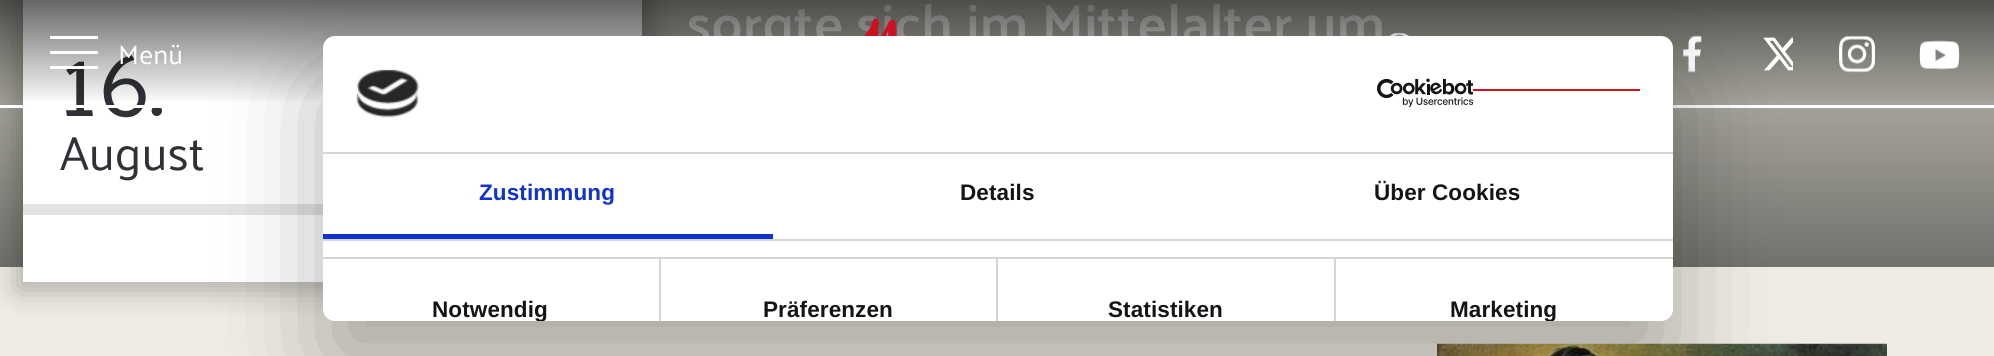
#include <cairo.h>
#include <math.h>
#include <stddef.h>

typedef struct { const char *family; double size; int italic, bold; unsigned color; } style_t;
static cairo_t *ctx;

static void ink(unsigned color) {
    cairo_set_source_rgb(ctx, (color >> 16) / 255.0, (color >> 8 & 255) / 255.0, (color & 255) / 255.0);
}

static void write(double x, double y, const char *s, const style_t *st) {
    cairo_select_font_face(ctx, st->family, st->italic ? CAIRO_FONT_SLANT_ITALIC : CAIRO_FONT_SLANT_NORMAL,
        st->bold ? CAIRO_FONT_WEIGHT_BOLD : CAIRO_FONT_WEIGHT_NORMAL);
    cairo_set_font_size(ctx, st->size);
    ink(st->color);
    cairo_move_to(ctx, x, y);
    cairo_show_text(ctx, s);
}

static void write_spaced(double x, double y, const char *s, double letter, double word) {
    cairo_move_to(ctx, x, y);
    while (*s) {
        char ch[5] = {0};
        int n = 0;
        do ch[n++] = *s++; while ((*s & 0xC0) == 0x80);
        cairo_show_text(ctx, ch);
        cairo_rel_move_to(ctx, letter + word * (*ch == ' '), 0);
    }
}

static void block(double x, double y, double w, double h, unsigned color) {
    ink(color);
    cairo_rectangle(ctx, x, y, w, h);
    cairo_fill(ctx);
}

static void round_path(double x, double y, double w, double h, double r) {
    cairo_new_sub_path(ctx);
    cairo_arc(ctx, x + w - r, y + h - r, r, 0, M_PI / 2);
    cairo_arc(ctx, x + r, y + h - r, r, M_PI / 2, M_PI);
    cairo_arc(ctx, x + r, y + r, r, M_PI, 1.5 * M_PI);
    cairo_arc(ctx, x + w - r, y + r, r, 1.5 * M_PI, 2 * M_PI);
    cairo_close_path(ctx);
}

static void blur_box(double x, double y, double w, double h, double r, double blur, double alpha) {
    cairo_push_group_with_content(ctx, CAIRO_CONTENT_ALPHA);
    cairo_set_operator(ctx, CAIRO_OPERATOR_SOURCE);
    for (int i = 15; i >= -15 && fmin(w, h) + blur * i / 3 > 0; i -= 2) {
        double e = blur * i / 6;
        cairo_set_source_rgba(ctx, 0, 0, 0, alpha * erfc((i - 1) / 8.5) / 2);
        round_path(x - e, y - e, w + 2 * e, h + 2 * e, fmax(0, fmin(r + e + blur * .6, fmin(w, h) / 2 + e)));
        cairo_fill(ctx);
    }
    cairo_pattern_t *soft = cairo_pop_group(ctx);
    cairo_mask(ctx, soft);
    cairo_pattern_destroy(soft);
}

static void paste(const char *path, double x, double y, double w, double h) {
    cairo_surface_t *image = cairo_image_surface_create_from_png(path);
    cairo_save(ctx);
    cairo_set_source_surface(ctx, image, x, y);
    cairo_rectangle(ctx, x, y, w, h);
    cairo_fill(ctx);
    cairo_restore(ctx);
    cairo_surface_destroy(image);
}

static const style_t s1 = {"Palanquin SemiBold", 55.25, 0, 0, 0xf8f8f7};
static const style_t s2 = {"Palanquin", 96, 0, 0, 0x2e3135};
static const style_t s3 = {"Palanquin", 48, 0, 0, 0x2e3135};
static const style_t s4 = {"Palanquin", 27, 0, 0, 0xffffff};

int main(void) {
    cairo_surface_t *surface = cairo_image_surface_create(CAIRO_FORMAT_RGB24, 1994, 356);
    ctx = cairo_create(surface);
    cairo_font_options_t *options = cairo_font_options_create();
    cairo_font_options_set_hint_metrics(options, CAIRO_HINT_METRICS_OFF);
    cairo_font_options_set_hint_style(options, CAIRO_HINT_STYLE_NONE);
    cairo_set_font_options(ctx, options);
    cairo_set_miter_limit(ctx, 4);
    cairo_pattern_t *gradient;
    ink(0xf0ece4);
    cairo_paint(ctx);
    gradient = cairo_pattern_create_linear(998, 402, 998, -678);
    cairo_pattern_add_color_stop_rgba(gradient, 0, 0.282, 0.278, 0.267, 1);
    cairo_pattern_add_color_stop_rgba(gradient, 0.5, 0.941, 0.933, 0.886, 1);
    cairo_set_source(ctx, gradient);
    cairo_pattern_destroy(gradient);
    cairo_rectangle(ctx, 0, 0, 1994, 267);
    cairo_fill(ctx);
    write(687, 43, "sorgte sich im Mittelalter um", &s1);
    ink(0x000000);
    blur_box(18, -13, 632, 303, 0, 15, 0.15);
    blur_box(18, -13, 632, 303, 0, 15, 0.15);
    block(23, 0, 619, 282, 0xffffff);
    write(60, 116, "16.", &s2);
    write(60, 170, "August", &s3);
    block(23, 204, 300, 11, 0xe2e3e3);
    paste("pic1.png", 1437, 343, 450, 13);
    gradient = cairo_pattern_create_linear(998, 0, 998, 105);
    cairo_pattern_add_color_stop_rgba(gradient, 0, 0, 0, 0, 0.6);
    cairo_pattern_add_color_stop_rgba(gradient, 1, 0, 0, 0, 0);
    cairo_set_source(ctx, gradient);
    cairo_pattern_destroy(gradient);
    cairo_rectangle(ctx, 0, 0, 1994, 101);
    cairo_fill(ctx);
    paste("pic2.png", 864, 18, 33, 18);
    block(50, 51, 48, 3, 0xffffff);
    block(50, 36, 48, 3, 0xffffff);
    block(50, 66, 48, 3, 0xffffff);
    write(118, 64, "Menü", &s4);
    paste("pic3.png", 1389, 32, 20, 4);
    paste("pic4.png", 1683, 35, 19, 38);
    paste("pic5.png", 1763, 37, 30, 34);
    paste("pic6.png", 1839, 35, 36, 38);
    paste("pic7.png", 1919, 40, 41, 30);
    block(0, 105, 162, 3, 0xffffff);
    block(1673, 105, 321, 3, 0xffffff);
    ink(0x000000);
    blur_box(323, 84, 1350, 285, 12, 51, 0.3);
    ink(0xffffff);
    round_path(323, 36, 1350, 285, 12);
    cairo_fill(ctx);
    block(323, 152, 1350, 2, 0xd6d6d6);
    paste("pic8.png", 356, 69, 64, 49);
    paste("pic9.png", 1377, 78, 96, 29);
    block(1473, 89, 167, 2, 0xd41323);
    block(323, 239, 1350, 2, 0xd6d6d6);
    block(323, 234, 450, 5, 0x1032cf);
    cairo_select_font_face(ctx, "Liberation Sans", CAIRO_FONT_SLANT_NORMAL, CAIRO_FONT_WEIGHT_BOLD);
    cairo_set_font_size(ctx, 22.5);
    write_spaced(479, 200, "Zustimmung", 0.1, 0);
    ink(0x141414);
    write_spaced(960, 200, "Details", 0.1, 0);
    write_spaced(1374, 200, "Über Cookies", 0.1, 0);
    block(659, 258, 2, 63, 0xd6d6d6);
    block(996, 258, 2, 63, 0xd6d6d6);
    block(1334, 258, 2, 63, 0xd6d6d6);
    block(323, 257, 1350, 2, 0xd6d6d6);
    cairo_save(ctx);
    round_path(323, 36, 1350, 285, 12);
    cairo_clip(ctx);
    ink(0x141414);
    write_spaced(432, 317, "Notwendig", 0.1, 0);
    cairo_restore(ctx);
    ink(0x141414);
    write_spaced(763, 317, "Präferenzen", 0.1, 0);
    write_spaced(1108, 317, "Statistiken", 0.1, 0);
    cairo_save(ctx);
    round_path(323, 36, 1350, 285, 12);
    cairo_clip(ctx);
    write_spaced(1450, 317, "Marketing", 0.1, 0);
    cairo_restore(ctx);
    cairo_surface_write_to_png(surface, "screenshot.png");
    cairo_font_options_destroy(options);
    cairo_destroy(ctx);
    cairo_surface_destroy(surface);
    return 0;
}
